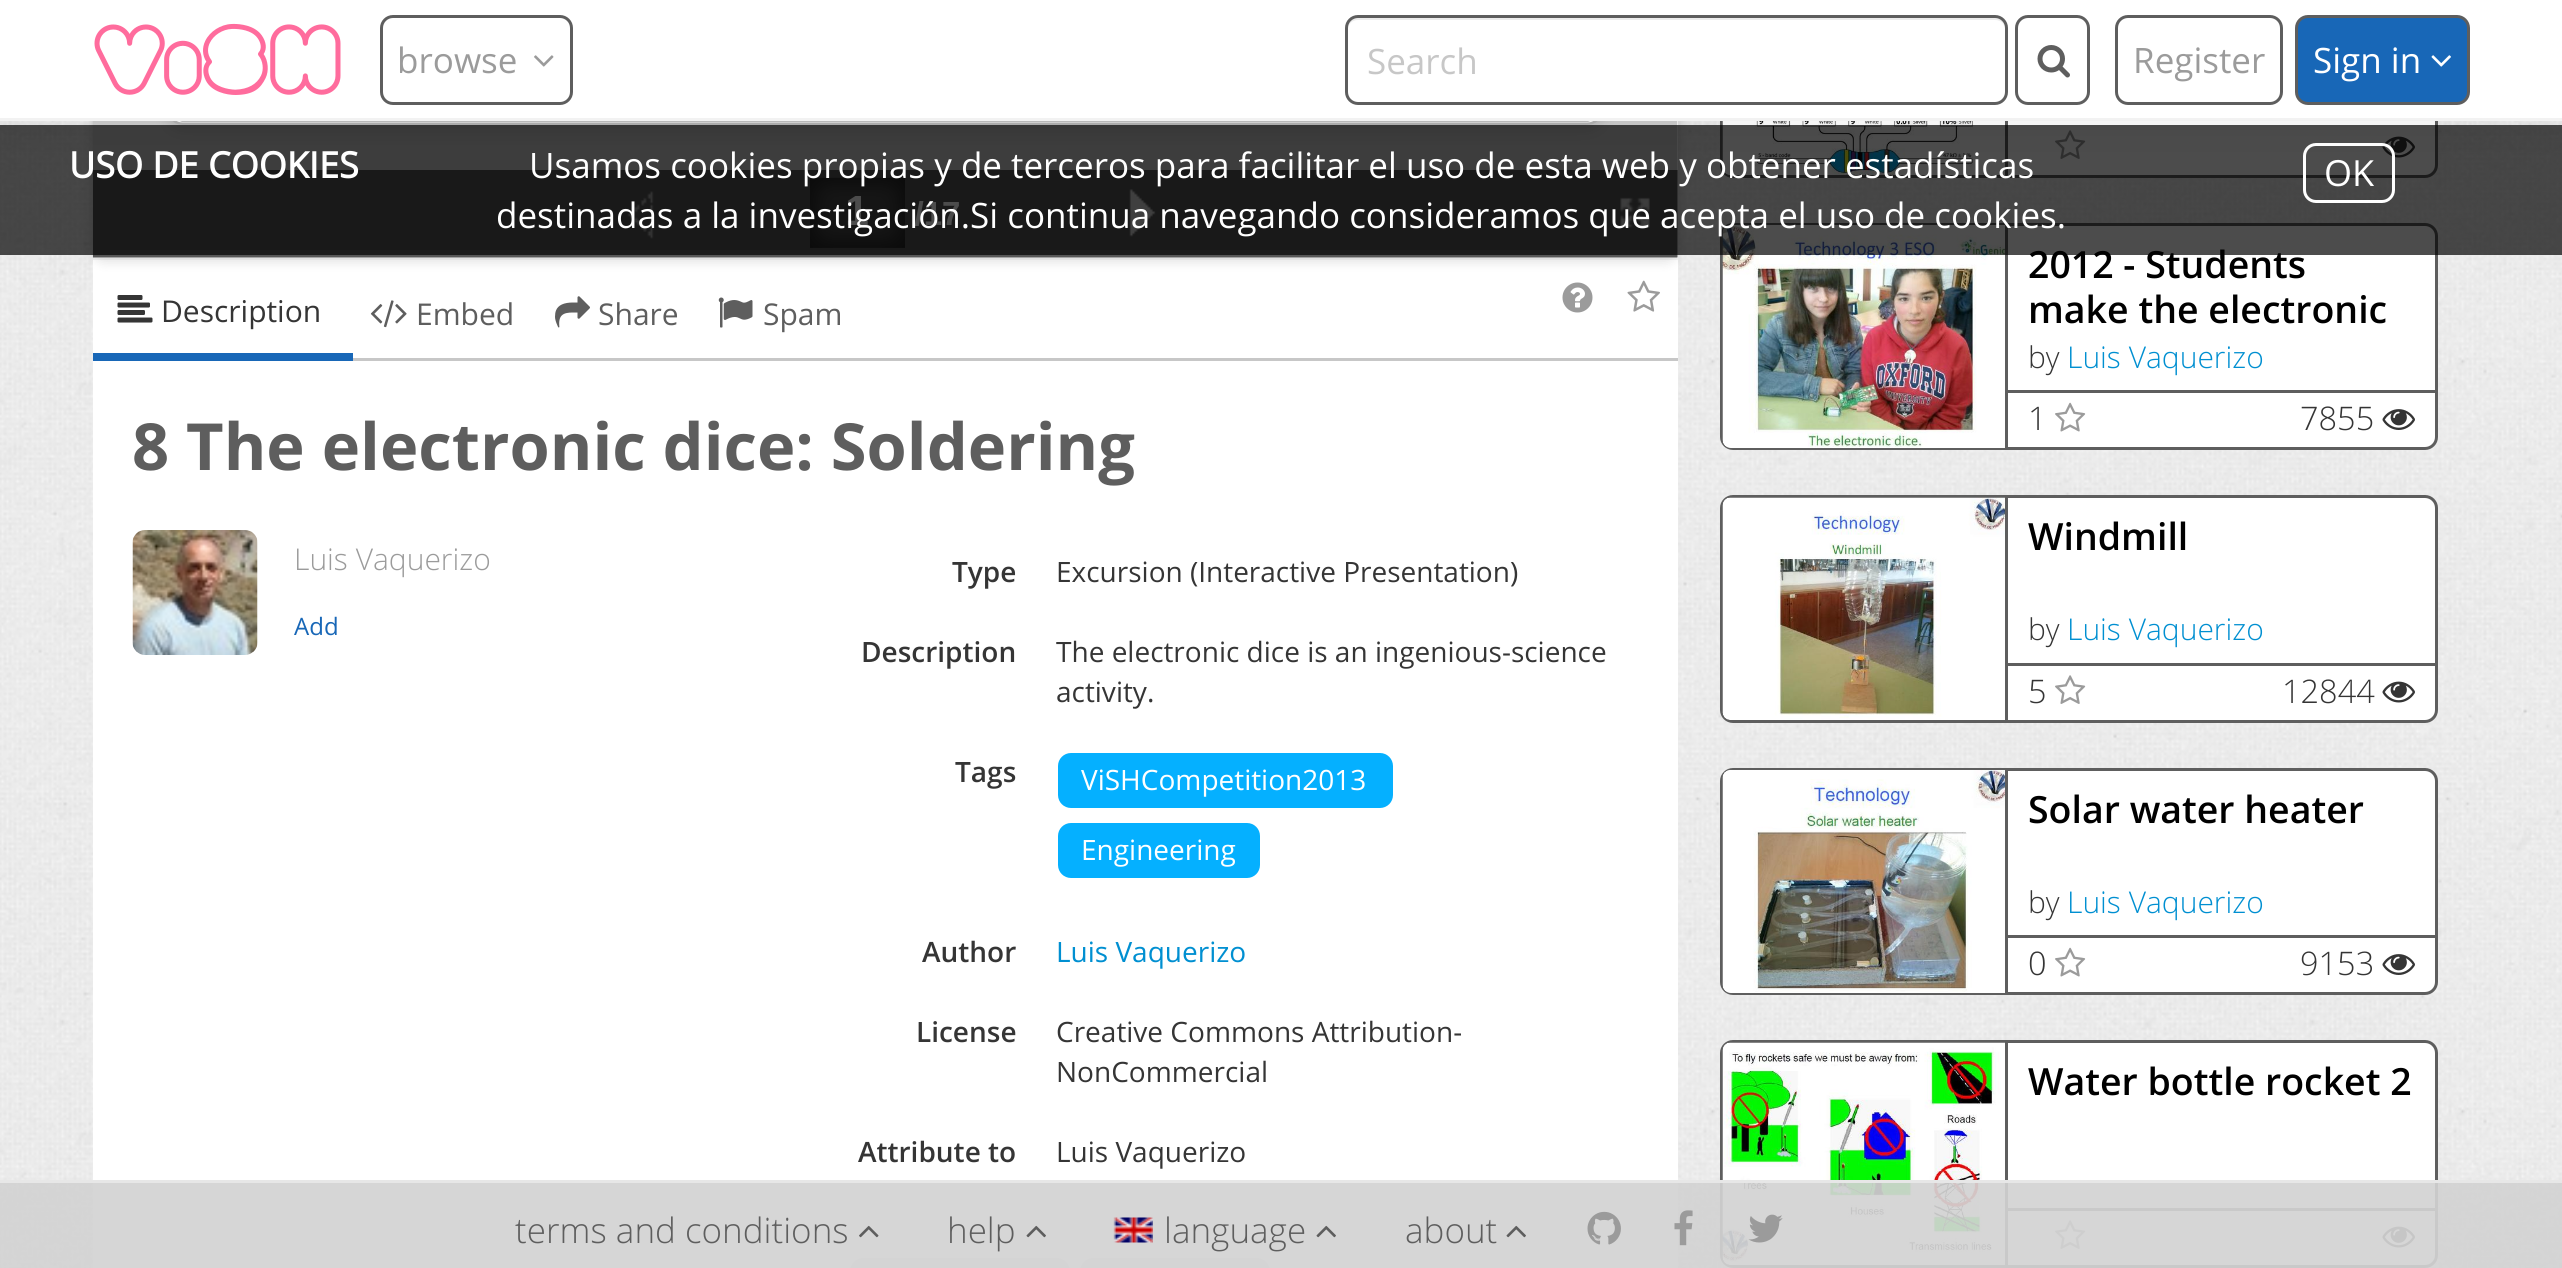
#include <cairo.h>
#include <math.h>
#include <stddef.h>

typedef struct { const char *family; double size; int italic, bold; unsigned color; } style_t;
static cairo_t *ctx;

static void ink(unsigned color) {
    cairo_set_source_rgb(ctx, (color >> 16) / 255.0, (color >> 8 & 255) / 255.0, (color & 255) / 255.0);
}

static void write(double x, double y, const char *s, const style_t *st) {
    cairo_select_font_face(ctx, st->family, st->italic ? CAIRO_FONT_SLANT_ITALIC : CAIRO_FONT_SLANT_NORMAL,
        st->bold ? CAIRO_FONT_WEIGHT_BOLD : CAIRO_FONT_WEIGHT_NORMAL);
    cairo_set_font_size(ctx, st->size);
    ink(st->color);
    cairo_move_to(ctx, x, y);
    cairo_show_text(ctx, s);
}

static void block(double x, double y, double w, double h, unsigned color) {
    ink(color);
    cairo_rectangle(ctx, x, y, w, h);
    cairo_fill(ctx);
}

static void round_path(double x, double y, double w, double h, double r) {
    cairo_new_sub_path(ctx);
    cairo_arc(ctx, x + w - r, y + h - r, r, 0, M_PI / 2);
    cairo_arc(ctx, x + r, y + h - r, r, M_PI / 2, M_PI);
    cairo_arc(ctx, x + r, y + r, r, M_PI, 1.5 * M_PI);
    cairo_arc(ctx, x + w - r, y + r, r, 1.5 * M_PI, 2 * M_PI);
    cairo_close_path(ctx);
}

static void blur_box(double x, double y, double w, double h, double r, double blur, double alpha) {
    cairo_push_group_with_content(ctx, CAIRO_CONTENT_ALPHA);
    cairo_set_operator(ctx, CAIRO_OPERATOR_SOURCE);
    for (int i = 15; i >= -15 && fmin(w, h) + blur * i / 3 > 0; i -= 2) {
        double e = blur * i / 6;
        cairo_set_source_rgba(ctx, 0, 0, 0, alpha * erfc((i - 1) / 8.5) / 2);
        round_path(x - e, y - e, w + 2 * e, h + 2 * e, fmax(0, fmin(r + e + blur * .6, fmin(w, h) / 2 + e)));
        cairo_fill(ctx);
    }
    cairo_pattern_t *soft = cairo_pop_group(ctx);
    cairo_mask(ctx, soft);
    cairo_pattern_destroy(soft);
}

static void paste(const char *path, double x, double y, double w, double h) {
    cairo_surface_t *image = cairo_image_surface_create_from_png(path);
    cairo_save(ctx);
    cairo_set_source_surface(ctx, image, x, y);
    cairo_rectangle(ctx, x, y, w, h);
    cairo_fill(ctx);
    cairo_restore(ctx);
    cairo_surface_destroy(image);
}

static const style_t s1 = {"Open Sans SemiBold", 37.5, 0, 0, 0x000000};
static const style_t s2 = {"Open Sans", 35, 0, 0, 0x9b9b9b};
static const style_t s3 = {"Open Sans", 35, 0, 0, 0xc7c7c7};
static const style_t s4 = {"Open Sans", 35, 0, 0, 0xffffff};
static const style_t s5 = {"Open Sans", 30, 0, 0, 0x353535};
static const style_t s6 = {"Open Sans", 30, 0, 0, 0x5e5e5e};
static const style_t s7 = {"Open Sans", 65, 0, 1, 0x5e5e5e};
static const style_t s8 = {"Open Sans Light", 30, 0, 0, 0x9b9b9b};
static const style_t s9 = {"Open Sans", 24, 0, 0, 0x1867b7};
static const style_t s10 = {"Open Sans SemiBold", 28, 0, 0, 0x353535};
static const style_t s11 = {"Open Sans", 28, 0, 0, 0x353535};
static const style_t s12 = {"Open Sans", 28, 0, 0, 0xffffff};
static const style_t s13 = {"Open Sans", 28, 0, 0, 0x008fd1};
static const style_t s14 = {"Open Sans Light", 30, 0, 0, 0x353535};
static const style_t s15 = {"Open Sans Light", 30, 0, 0, 0x008fd1};
static const style_t s16 = {"Open Sans Light", 32.5, 0, 0, 0x353535};
static const style_t s17 = {"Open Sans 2", 36, 0, 1, 0xffffff};
static const style_t s18 = {"Open Sans", 36, 0, 0, 0xffffff};
static const style_t s19 = {"Open Sans Light", 35, 0, 0, 0x5e5e5e};

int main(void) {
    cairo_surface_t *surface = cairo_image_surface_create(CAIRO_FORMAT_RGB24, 2562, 1268);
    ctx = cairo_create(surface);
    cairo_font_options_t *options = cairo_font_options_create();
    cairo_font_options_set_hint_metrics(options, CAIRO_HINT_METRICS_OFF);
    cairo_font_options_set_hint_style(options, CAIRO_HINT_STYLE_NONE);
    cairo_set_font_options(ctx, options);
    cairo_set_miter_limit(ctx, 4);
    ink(0xffffff);
    cairo_paint(ctx);
    paste("pic1.png", 0, 121, 2562, 1147);
    block(93, 260, 1585, 1008, 0xffffff);
    block(93, 258, 1585, 2, 0xf2f2f2);
    ink(0x000000);
    blur_box(90, -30, 1590, 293, 15, 5, 0.1);
    block(93, 121, 1585, 137, 0xffffff);
    paste("pic6.png", 92, 121, 1586, 137);
    round_path(1721.5, -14.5, 715, 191, 11.5);
    cairo_fill_preserve(ctx);
    ink(0x5e5e5e);
    cairo_set_line_width(ctx, 3);
    cairo_stroke(ctx);
    ink(0xffffff);
    cairo_new_path(ctx);
    cairo_move_to(ctx, 1731, -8);
    cairo_line_to(ctx, 2008, -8);
    cairo_line_to(ctx, 2008, 175);
    cairo_line_to(ctx, 1731, 175);
    cairo_curve_to(ctx, 1726.5, 175, 1723, 171.5, 1723, 167);
    cairo_line_to(ctx, 1723, 0);
    cairo_curve_to(ctx, 1723, -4.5, 1726.5, -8, 1731, -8);
    cairo_close_path(ctx);
    cairo_fill(ctx);
    block(2005, 121, 3, 54, 0x5e5e5e);
    paste("pic14.png", 1722, 121, 256, 54);
    paste("pic15.png", 2055, 130, 31, 29);
    paste("pic16.png", 2382, 136, 33, 22);
    ink(0xffffff);
    round_path(1721.5, 224.5, 715, 224, 11.5);
    cairo_fill_preserve(ctx);
    ink(0x5e5e5e);
    cairo_stroke(ctx);
    ink(0xffffff);
    cairo_new_path(ctx);
    cairo_move_to(ctx, 1731, 225);
    cairo_line_to(ctx, 2008, 225);
    cairo_line_to(ctx, 2008, 448);
    cairo_line_to(ctx, 1731, 448);
    cairo_curve_to(ctx, 1726.5, 448, 1723, 444.5, 1723, 440);
    cairo_line_to(ctx, 1723, 233);
    cairo_curve_to(ctx, 1723, 228.5, 1726.5, 225, 1731, 225);
    cairo_close_path(ctx);
    cairo_fill(ctx);
    block(2005, 225, 3, 223, 0x5e5e5e);
    paste("pic17.png", 1722, 225, 283, 223);
    write(2028, 278, "2012 - Students", &s1);
    cairo_set_source_rgba(ctx, 0, 0, 0, 0.7);
    cairo_rectangle(ctx, 0, 125, 2562, 130);
    cairo_fill(ctx);
    round_path(2304.5, 144.5, 89, 57, 11.5);
    ink(0xffffff);
    cairo_stroke(ctx);
    ink(0x000000);
    blur_box(0, -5, 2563, 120, 0, 25, 0.1);
    block(0, 0, 2562, 118, 0xffffff);
    block(0, 118, 2562, 3, 0xf2f2f2);
    paste("pic2.png", 94, 23, 247, 72);
    round_path(381.5, 16.5, 190, 87, 11.5);
    ink(0x5e5e5e);
    cairo_stroke(ctx);
    write(397, 73, "browse", &s2);
    paste("pic3.png", 534, 55, 20, 12);
    ink(0xececec);
    cairo_new_path(ctx);
    cairo_move_to(ctx, 1358, 20);
    cairo_line_to(ctx, 1995, 20);
    cairo_curve_to(ctx, 2001, 20, 2005, 24, 2005, 30);
    cairo_curve_to(ctx, 2005, 24, 2002, 18, 1995, 18);
    cairo_line_to(ctx, 1358, 18);
    cairo_curve_to(ctx, 1351, 18, 1348, 24, 1348, 30);
    cairo_curve_to(ctx, 1348, 24, 1352, 20, 1358, 20);
    cairo_close_path(ctx);
    cairo_fill(ctx);
    round_path(1346.5, 16.5, 660, 87, 11.5);
    ink(0x5e5e5e);
    cairo_stroke(ctx);
    write(1367, 74, "Search", &s3);
    round_path(2016.5, 16.5, 72, 87, 11.5);
    ink(0x5e5e5e);
    cairo_stroke(ctx);
    paste("pic4.png", 2037, 45, 33, 33);
    round_path(2116.5, 16.5, 165, 87, 11.5);
    cairo_stroke(ctx);
    write(2133, 73, "Register", &s2);
    ink(0x1867b7);
    round_path(2296.5, 16.5, 172, 87, 11.5);
    cairo_fill_preserve(ctx);
    ink(0x5e5e5e);
    cairo_stroke(ctx);
    write(2313, 73, "Sign in", &s4);
    paste("pic5.png", 2431, 55, 20, 12);
    paste("pic7.png", 1627, 280, 33, 32);
    block(353, 358, 1325, 3, 0xc7c7c7);
    block(93, 353, 260, 8, 0x1867b7);
    paste("pic8.png", 117, 295, 36, 28);
    write(161, 322, "Description", &s5);
    paste("pic9.png", 370, 300, 37, 28);
    write(416, 325, "Embed", &s6);
    paste("pic10.png", 555, 296, 35, 32);
    write(598, 325, "Share", &s6);
    paste("pic11.png", 718, 297, 35, 31);
    write(763, 325, "Spam", &s6);
    paste("pic12.png", 1562, 282, 31, 31);
    write(132, 470, "8 The electronic dice: Soldering", &s7);
    paste("pic13.png", 132, 530, 126, 125);
    write(294, 570, "Luis Vaquerizo", &s8);
    write(294, 635, "Add", &s9);
    write(952, 582, "Type", &s10);
    write(1056, 582, "Excursion (Interactive Presentation)", &s11);
    write(861, 662, "Description", &s10);
    write(1056, 662, "The electronic dice is an ingenious-science", &s11);
    write(1056, 702, "activity.", &s11);
    write(955, 782, "Tags", &s10);
    ink(0x05b0ff);
    round_path(1058, 753, 335, 55, 13);
    cairo_fill(ctx);
    write(1081, 790, "ViSHCompetition2013", &s12);
    ink(0x05b0ff);
    round_path(1058, 823, 202, 55, 13);
    cairo_fill(ctx);
    write(1081, 860, "Engineering", &s12);
    write(922, 962, "Author", &s10);
    write(1056, 962, "Luis Vaquerizo", &s13);
    write(916, 1042, "License", &s10);
    write(1056, 1042, "Creative Commons Attribution-", &s11);
    write(1056, 1082, "NonCommercial", &s11);
    write(858, 1162, "Attribute to", &s10);
    write(1056, 1162, "Luis Vaquerizo", &s11);
    ink(0xe7e7e7);
    round_path(850, 1258, 220, 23, 13);
    cairo_fill(ctx);
    round_path(1080, 1258, 190, 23, 13);
    cairo_fill(ctx);
    write(2028, 323, "make the electronic", &s1);
    write(2028, 368, "by", &s14);
    write(2067, 368, "Luis Vaquerizo", &s15);
    block(2008, 390, 427, 3, 0x5e5e5e);
    write(2028, 430, "1", &s16);
    paste("pic18.png", 2055, 402, 31, 30);
    write(2300, 430, "7855", &s16);
    paste("pic19.png", 2382, 409, 33, 21);
    ink(0xffffff);
    round_path(1721.5, 496.5, 715, 225, 11.5);
    cairo_fill_preserve(ctx);
    ink(0x5e5e5e);
    cairo_stroke(ctx);
    block(2005, 498, 3, 222, 0x5e5e5e);
    paste("pic20.png", 1722, 497, 283, 223);
    write(2028, 550, "Windmill", &s1);
    write(2028, 640, "by", &s14);
    write(2067, 640, "Luis Vaquerizo", &s15);
    block(2008, 663, 427, 3, 0x5e5e5e);
    write(2028, 703, "5", &s16);
    paste("pic15.png", 2055, 675, 31, 29);
    write(2282, 703, "12844", &s16);
    paste("pic16.png", 2382, 681, 33, 22);
    ink(0xffffff);
    round_path(1721.5, 769.5, 715, 224, 11.5);
    cairo_fill_preserve(ctx);
    ink(0x5e5e5e);
    cairo_stroke(ctx);
    ink(0xffffff);
    cairo_new_path(ctx);
    cairo_move_to(ctx, 1731, 770);
    cairo_line_to(ctx, 2008, 770);
    cairo_line_to(ctx, 2008, 993);
    cairo_line_to(ctx, 1731, 993);
    cairo_curve_to(ctx, 1726.5, 993, 1723, 989.5, 1723, 985);
    cairo_line_to(ctx, 1723, 778);
    cairo_curve_to(ctx, 1723, 773.5, 1726.5, 770, 1731, 770);
    cairo_close_path(ctx);
    cairo_fill(ctx);
    block(2005, 770, 3, 223, 0x5e5e5e);
    paste("pic21.png", 1722, 770, 283, 223);
    write(2028, 823, "Solar water heater", &s1);
    write(2028, 913, "by", &s14);
    write(2067, 913, "Luis Vaquerizo", &s15);
    block(2008, 935, 427, 3, 0x5e5e5e);
    write(2028, 975, "0", &s16);
    paste("pic18.png", 2055, 947, 31, 30);
    write(2300, 975, "9153", &s16);
    paste("pic19.png", 2382, 954, 33, 21);
    ink(0xffffff);
    round_path(1721.5, 1041.5, 715, 225, 11.5);
    cairo_fill_preserve(ctx);
    ink(0x5e5e5e);
    cairo_stroke(ctx);
    block(2005, 1043, 3, 222, 0x5e5e5e);
    paste("pic22.png", 1722, 1042, 283, 223);
    write(2028, 1095, "Water bottle rocket 2", &s1);
    block(2008, 1208, 427, 3, 0x5e5e5e);
    paste("pic15.png", 2055, 1220, 31, 29);
    paste("pic16.png", 2382, 1226, 33, 22);
    write(69, 178, "USO DE COOKIES", &s17);
    write(529, 178, "Usamos cookies propias y de terceros para facilitar el uso de esta web y obtener estadísticas", &s4);
    write(496, 228, "destinadas a la investigación.Si continua navegando consideramos que acepta el uso de cookies.", &s4);
    write(2324, 186, "OK", &s18);
    cairo_set_source_rgba(ctx, 0.827, 0.827, 0.827, 0.92);
    cairo_rectangle(ctx, 0, 1183, 2562, 85);
    cairo_fill(ctx);
    block(0, 1180, 2562, 3, 0xe7e7e7);
    write(515, 1243, "terms and conditions", &s19);
    paste("pic23.png", 859, 1225, 20, 13);
    write(947, 1243, "help", &s19);
    paste("pic24.png", 1026, 1225, 20, 13);
    paste("pic25.png", 1113, 1217, 40, 26);
    write(1164, 1243, "language", &s19);
    paste("pic24.png", 1316, 1225, 20, 13);
    write(1405, 1243, "about", &s19);
    paste("pic24.png", 1506, 1225, 20, 13);
    paste("pic26.png", 1587, 1211, 34, 34);
    paste("pic27.png", 1674, 1210, 19, 36);
    paste("pic28.png", 1748, 1214, 35, 29);
    cairo_surface_write_to_png(surface, "screenshot.png");
    cairo_font_options_destroy(options);
    cairo_destroy(ctx);
    cairo_surface_destroy(surface);
    return 0;
}
